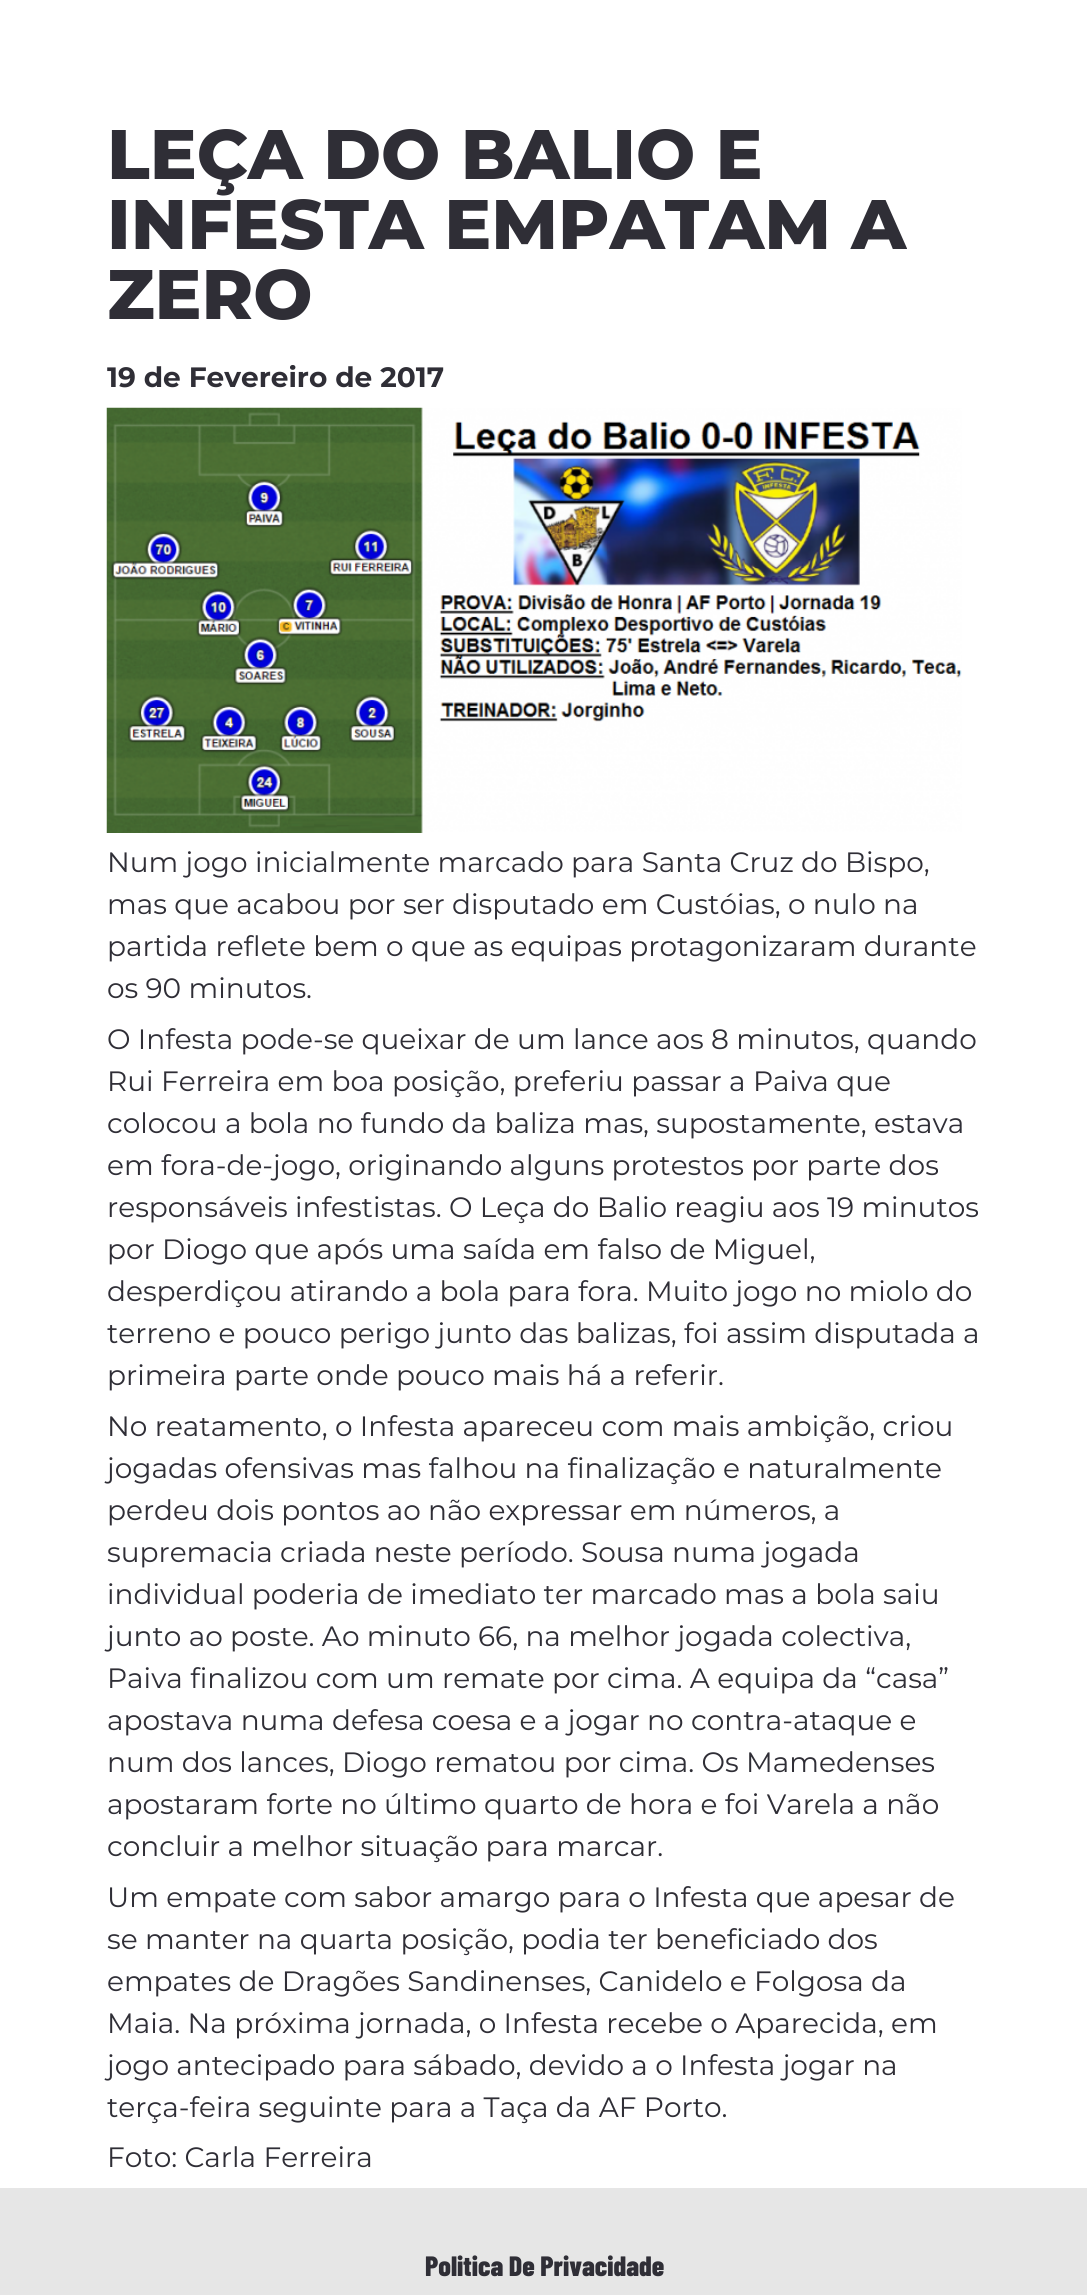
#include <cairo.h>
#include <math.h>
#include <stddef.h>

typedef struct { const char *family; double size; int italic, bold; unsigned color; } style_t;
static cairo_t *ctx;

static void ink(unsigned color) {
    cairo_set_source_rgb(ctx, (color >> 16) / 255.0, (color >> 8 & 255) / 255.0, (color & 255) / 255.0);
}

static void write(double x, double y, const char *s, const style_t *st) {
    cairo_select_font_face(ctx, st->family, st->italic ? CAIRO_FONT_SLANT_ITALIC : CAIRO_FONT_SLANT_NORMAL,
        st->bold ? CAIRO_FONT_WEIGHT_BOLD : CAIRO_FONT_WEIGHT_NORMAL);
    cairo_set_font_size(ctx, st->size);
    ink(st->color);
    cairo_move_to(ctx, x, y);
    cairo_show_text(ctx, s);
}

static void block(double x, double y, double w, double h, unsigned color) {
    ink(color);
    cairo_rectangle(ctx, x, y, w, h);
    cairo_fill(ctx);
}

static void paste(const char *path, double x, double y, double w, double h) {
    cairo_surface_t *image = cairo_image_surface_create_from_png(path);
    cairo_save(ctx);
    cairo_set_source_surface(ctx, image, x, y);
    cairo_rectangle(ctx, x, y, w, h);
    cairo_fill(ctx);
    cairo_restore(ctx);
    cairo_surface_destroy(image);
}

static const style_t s1 = {"Montserrat ExtraBold", 70, 0, 0, 0x2f2e36};
static const style_t s2 = {"Montserrat", 28, 0, 1, 0x2f2e36};
static const style_t s3 = {"Montserrat", 28, 0, 0, 0x2f2e36};
static const style_t s4 = {"Barlow Condensed ExtraBold", 28, 0, 0, 0x2f2e36};

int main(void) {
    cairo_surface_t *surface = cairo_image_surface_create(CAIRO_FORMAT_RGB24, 1087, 2295);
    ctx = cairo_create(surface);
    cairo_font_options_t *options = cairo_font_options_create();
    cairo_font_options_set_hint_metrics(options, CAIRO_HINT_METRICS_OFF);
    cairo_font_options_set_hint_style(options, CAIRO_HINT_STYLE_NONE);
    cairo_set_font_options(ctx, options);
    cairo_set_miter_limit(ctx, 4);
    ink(0xffffff);
    cairo_paint(ctx);
    write(107, 179, "LEÇA DO BALIO E", &s1);
    write(107, 249, "INFESTA EMPATAM A", &s1);
    write(107, 319, "ZERO", &s1);
    write(107, 387, "19 de Fevereiro de 2017", &s2);
    paste("pic1.png", 106, 407, 856, 426);
    write(107, 872, "Num jogo inicialmente marcado para Santa Cruz do Bispo,", &s3);
    write(107, 914, "mas que acabou por ser disputado em Custóias, o nulo na", &s3);
    write(107, 956, "partida reflete bem o que as equipas protagonizaram durante", &s3);
    write(107, 998, "os 90 minutos.", &s3);
    write(107, 1049, "O Infesta pode-se queixar de um lance aos 8 minutos, quando", &s3);
    write(107, 1091, "Rui Ferreira em boa posição, preferiu passar a Paiva que", &s3);
    write(107, 1133, "colocou a bola no fundo da baliza mas, supostamente, estava", &s3);
    write(107, 1175, "em fora-de-jogo, originando alguns protestos por parte dos", &s3);
    write(107, 1217, "responsáveis infestistas. O Leça do Balio reagiu aos 19 minutos", &s3);
    write(107, 1259, "por Diogo que após uma saída em falso de Miguel,", &s3);
    write(107, 1301, "desperdiçou atirando a bola para fora. Muito jogo no miolo do", &s3);
    write(107, 1343, "terreno e pouco perigo junto das balizas, foi assim disputada a", &s3);
    write(107, 1385, "primeira parte onde pouco mais há a referir.", &s3);
    write(107, 1436, "No reatamento, o Infesta apareceu com mais ambição, criou", &s3);
    write(107, 1478, "jogadas ofensivas mas falhou na finalização e naturalmente", &s3);
    write(107, 1520, "perdeu dois pontos ao não expressar em números, a", &s3);
    write(107, 1562, "supremacia criada neste período. Sousa numa jogada", &s3);
    write(107, 1604, "individual poderia de imediato ter marcado mas a bola saiu", &s3);
    write(107, 1646, "junto ao poste. Ao minuto 66, na melhor jogada colectiva,", &s3);
    write(107, 1688, "Paiva finalizou com um remate por cima. A equipa da “casa”", &s3);
    write(107, 1730, "apostava numa defesa coesa e a jogar no contra-ataque e", &s3);
    write(107, 1772, "num dos lances, Diogo rematou por cima. Os Mamedenses", &s3);
    write(107, 1814, "apostaram forte no último quarto de hora e foi Varela a não", &s3);
    write(107, 1856, "concluir a melhor situação para marcar.", &s3);
    write(107, 1907, "Um empate com sabor amargo para o Infesta que apesar de", &s3);
    write(107, 1949, "se manter na quarta posição, podia ter beneficiado dos", &s3);
    write(107, 1991, "empates de Dragões Sandinenses, Canidelo e Folgosa da", &s3);
    write(107, 2033, "Maia. Na próxima jornada, o Infesta recebe o Aparecida, em", &s3);
    write(107, 2075, "jogo antecipado para sábado, devido a o Infesta jogar na", &s3);
    write(107, 2117, "terça-feira seguinte para a Taça da AF Porto.", &s3);
    write(107, 2167, "Foto: Carla Ferreira", &s3);
    block(0, 2188, 1087, 107, 0xe6e6e6);
    write(425, 2276, "Politica De Privacidade", &s4);
    cairo_surface_write_to_png(surface, "screenshot.png");
    cairo_font_options_destroy(options);
    cairo_destroy(ctx);
    cairo_surface_destroy(surface);
    return 0;
}
